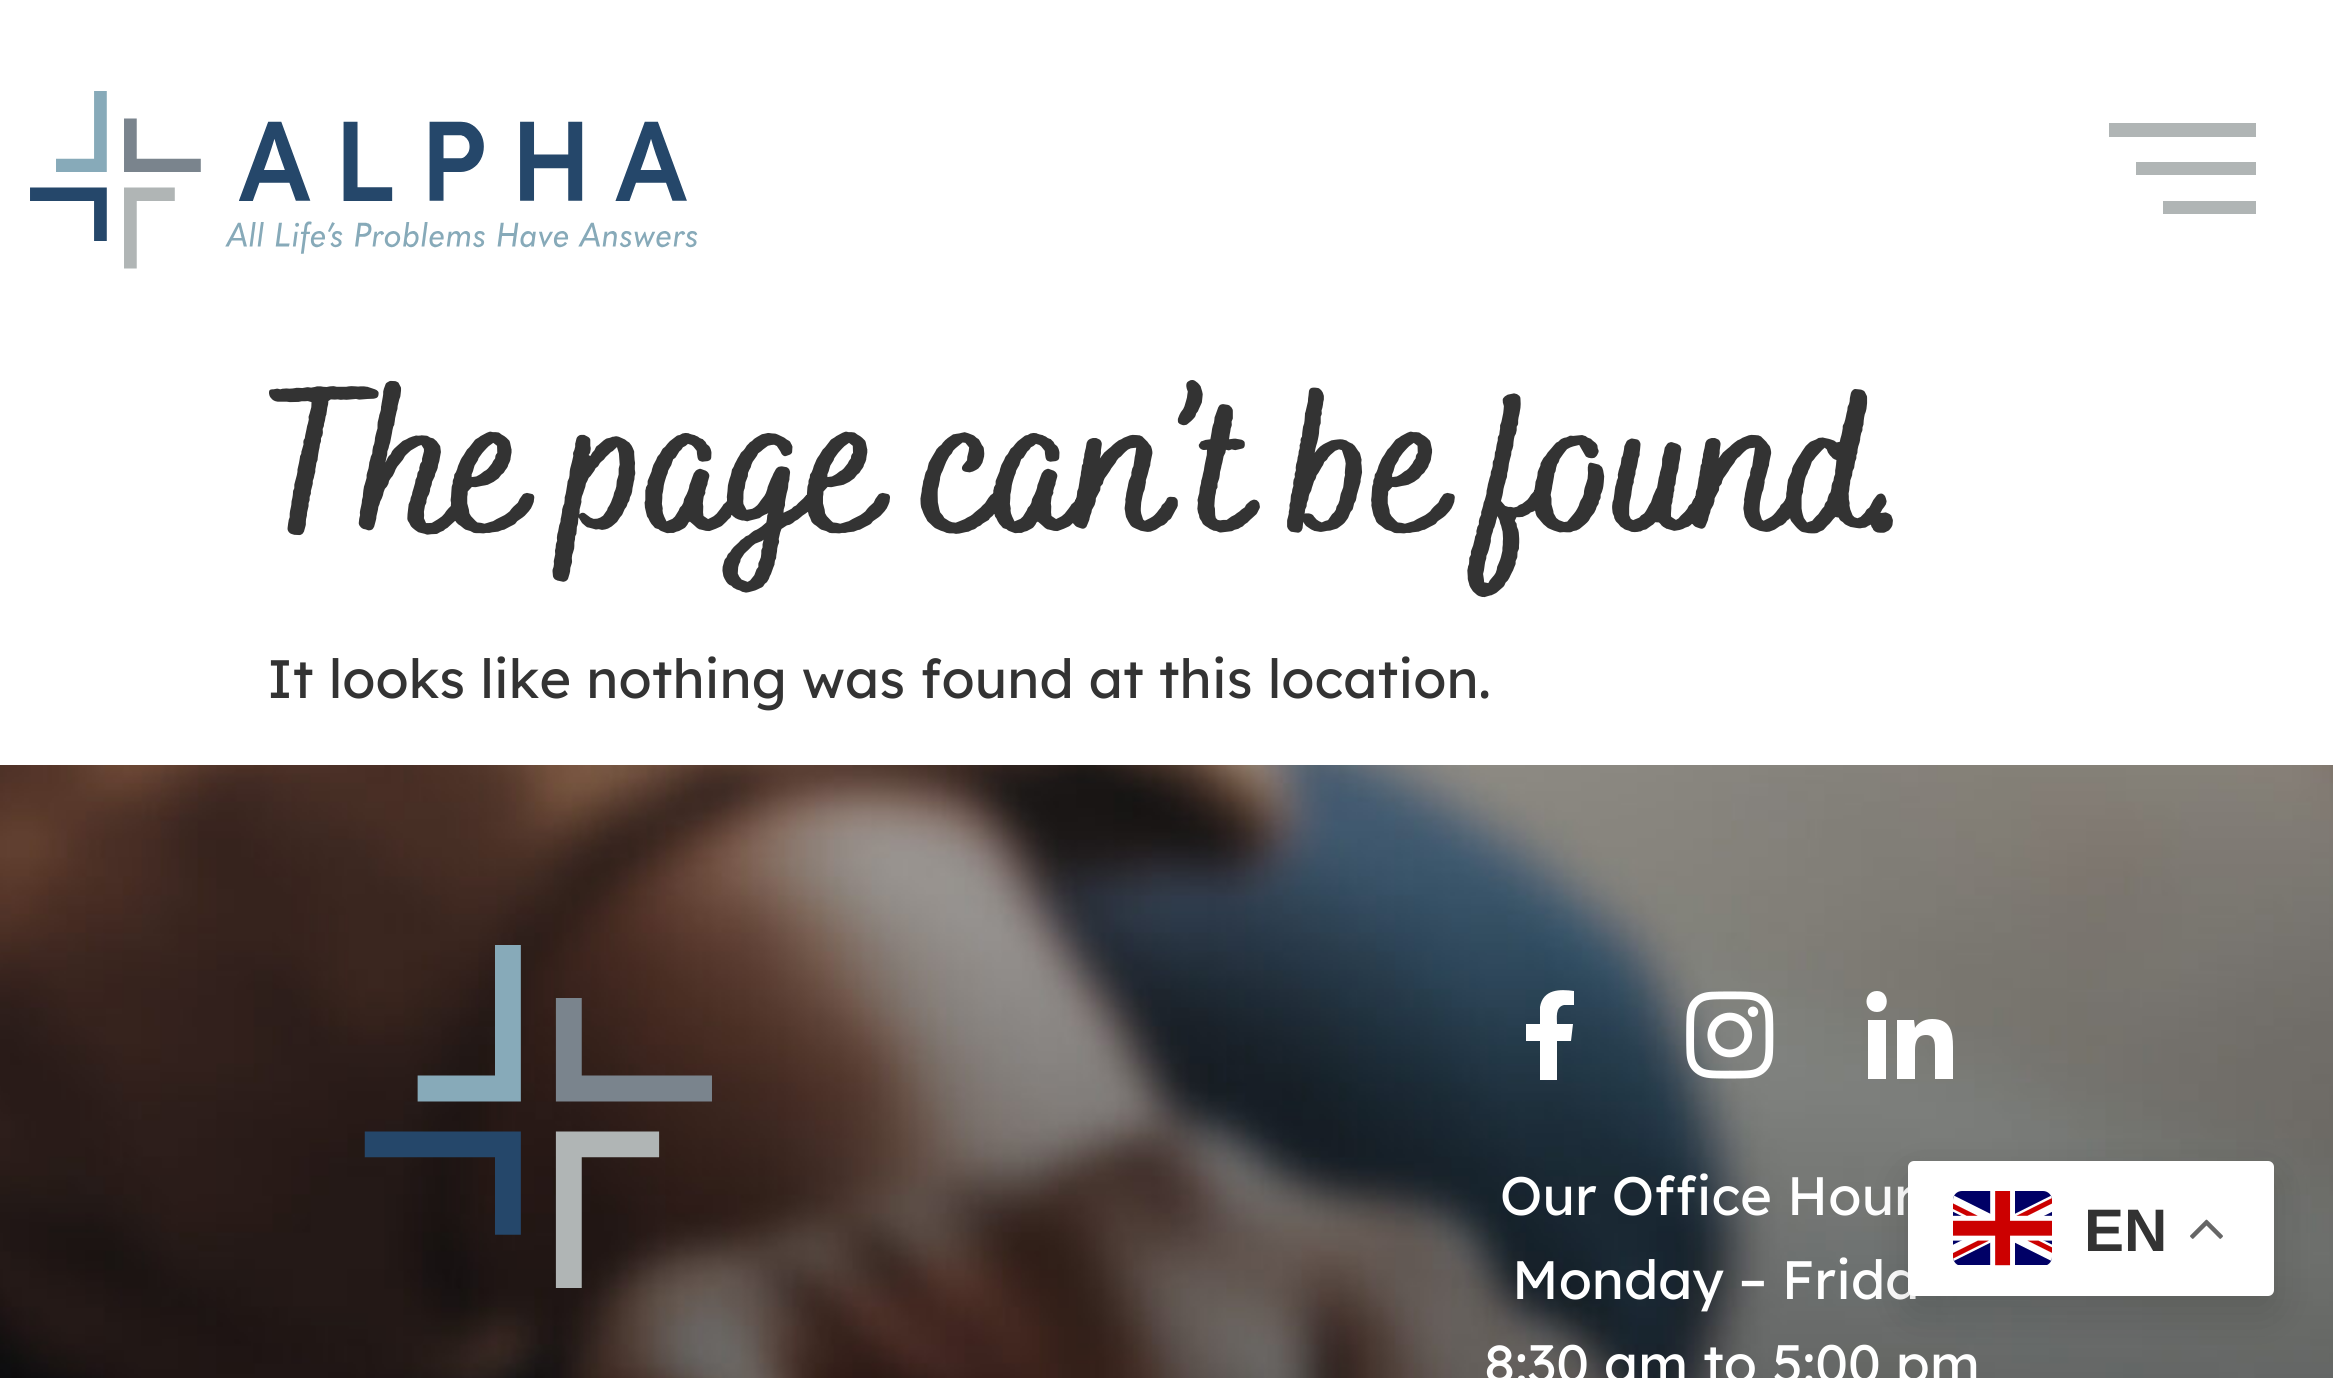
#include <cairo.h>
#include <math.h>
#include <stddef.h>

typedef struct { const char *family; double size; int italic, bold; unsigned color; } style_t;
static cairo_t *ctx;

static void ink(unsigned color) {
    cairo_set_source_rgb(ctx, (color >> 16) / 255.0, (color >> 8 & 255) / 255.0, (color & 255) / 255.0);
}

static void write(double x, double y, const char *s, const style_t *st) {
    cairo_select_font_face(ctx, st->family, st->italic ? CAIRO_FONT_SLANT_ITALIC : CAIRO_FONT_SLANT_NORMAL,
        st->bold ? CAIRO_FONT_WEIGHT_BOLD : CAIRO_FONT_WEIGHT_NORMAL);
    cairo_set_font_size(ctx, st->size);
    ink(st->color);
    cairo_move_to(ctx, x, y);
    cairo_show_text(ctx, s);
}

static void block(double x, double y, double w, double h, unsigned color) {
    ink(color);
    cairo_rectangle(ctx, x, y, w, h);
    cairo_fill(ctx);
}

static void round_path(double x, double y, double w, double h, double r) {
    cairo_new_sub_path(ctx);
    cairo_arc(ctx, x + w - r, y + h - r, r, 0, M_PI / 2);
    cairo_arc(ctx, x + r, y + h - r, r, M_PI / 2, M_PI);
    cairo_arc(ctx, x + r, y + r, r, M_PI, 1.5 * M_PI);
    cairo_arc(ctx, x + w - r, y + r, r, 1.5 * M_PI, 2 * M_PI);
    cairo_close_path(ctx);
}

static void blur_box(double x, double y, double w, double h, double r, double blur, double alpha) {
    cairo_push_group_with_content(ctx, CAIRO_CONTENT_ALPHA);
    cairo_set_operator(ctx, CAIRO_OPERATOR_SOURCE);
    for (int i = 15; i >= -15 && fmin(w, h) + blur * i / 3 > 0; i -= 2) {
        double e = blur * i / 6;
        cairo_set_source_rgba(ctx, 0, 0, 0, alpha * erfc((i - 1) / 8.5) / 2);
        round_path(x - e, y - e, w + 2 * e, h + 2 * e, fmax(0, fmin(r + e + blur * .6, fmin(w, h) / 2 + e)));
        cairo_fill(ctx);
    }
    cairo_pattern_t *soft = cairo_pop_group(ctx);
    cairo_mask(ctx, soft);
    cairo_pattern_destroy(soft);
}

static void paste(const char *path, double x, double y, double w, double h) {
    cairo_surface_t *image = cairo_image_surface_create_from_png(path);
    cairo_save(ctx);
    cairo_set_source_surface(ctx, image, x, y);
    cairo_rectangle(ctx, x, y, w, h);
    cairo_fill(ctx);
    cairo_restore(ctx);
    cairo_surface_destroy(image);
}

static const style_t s1 = {"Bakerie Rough", 210, 0, 1, 0x333333};
static const style_t s2 = {"Lexend", 54, 0, 0, 0x333333};
static const style_t s3 = {"Lexend", 54, 0, 0, 0xffffff};
static const style_t s4 = {"Liberation Sans", 60, 0, 1, 0x333333};

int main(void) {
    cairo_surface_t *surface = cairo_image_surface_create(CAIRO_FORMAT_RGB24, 2333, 1378);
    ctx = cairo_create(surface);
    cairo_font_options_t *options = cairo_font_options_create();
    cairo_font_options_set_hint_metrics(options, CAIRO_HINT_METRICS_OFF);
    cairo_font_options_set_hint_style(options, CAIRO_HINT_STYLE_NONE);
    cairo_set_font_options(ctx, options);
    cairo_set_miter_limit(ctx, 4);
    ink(0xffffff);
    cairo_paint(ctx);
    paste("pic1.png", 30, 91, 668, 178);
    block(2109, 123, 147, 14, 0xb0b5b5);
    block(2136, 162, 120, 13, 0xb0b5b5);
    block(2163, 201, 93, 13, 0xb0b5b5);
    write(267, 530, "The page can’t be found.", &s1);
    write(267, 698, "It looks like nothing was found at this location.", &s2);
    paste("pic2.png", 0, 765, 2333, 613);
    paste("pic3.png", 364, 945, 348, 343);
    ink(0xffffff);
    cairo_new_path(ctx);
    cairo_move_to(ctx, 1571, 1041);
    cairo_line_to(ctx, 1573, 1024);
    cairo_line_to(ctx, 1557, 1024);
    cairo_curve_to(ctx, 1557, 1018, 1555, 1007, 1564, 1005);
    cairo_line_to(ctx, 1574, 1005);
    cairo_line_to(ctx, 1574, 991);
    cairo_curve_to(ctx, 1560, 989, 1543, 989, 1540, 1007);
    cairo_line_to(ctx, 1540, 1024);
    cairo_line_to(ctx, 1526, 1024);
    cairo_line_to(ctx, 1526, 1041);
    cairo_line_to(ctx, 1540, 1041);
    cairo_line_to(ctx, 1540, 1080);
    cairo_line_to(ctx, 1557, 1080);
    cairo_line_to(ctx, 1557, 1041);
    cairo_close_path(ctx);
    cairo_fill(ctx);
    paste("pic4.png", 1686, 991, 88, 88);
    cairo_new_path(ctx);
    cairo_move_to(ctx, 1886, 1079);
    cairo_line_to(ctx, 1868, 1079);
    cairo_line_to(ctx, 1868, 1020);
    cairo_line_to(ctx, 1886, 1020);
    cairo_close_path(ctx);
    cairo_move_to(ctx, 1877, 1012);
    cairo_curve_to(ctx, 1863, 1012, 1863, 991, 1877, 991);
    cairo_curve_to(ctx, 1890, 991, 1890, 1012, 1877, 1012);
    cairo_close_path(ctx);
    cairo_move_to(ctx, 1953, 1079);
    cairo_line_to(ctx, 1935, 1079);
    cairo_line_to(ctx, 1935, 1050);
    cairo_curve_to(ctx, 1935, 1043, 1935, 1035, 1926, 1035);
    cairo_curve_to(ctx, 1917, 1035, 1915, 1042, 1915, 1050);
    cairo_line_to(ctx, 1915, 1079);
    cairo_line_to(ctx, 1897, 1079);
    cairo_line_to(ctx, 1897, 1020);
    cairo_line_to(ctx, 1914, 1020);
    cairo_line_to(ctx, 1915, 1028);
    cairo_curve_to(ctx, 1917, 1024, 1923, 1019, 1932, 1019);
    cairo_curve_to(ctx, 1950, 1019, 1953, 1031, 1953, 1047);
    cairo_close_path(ctx);
    cairo_fill(ctx);
    write(1500, 1215, "Our Office Hour", &s3);
    write(1512, 1299, "Monday – Frida", &s3);
    write(1484, 1383, "8:30 am to 5:00 pm", &s3);
    ink(0x000000);
    blur_box(1908, 1176, 366, 135, 6, 22.5, 0.15);
    ink(0xffffff);
    round_path(1908, 1161, 366, 135, 6);
    cairo_fill(ctx);
    paste("pic5.png", 1953, 1191, 99, 75);
    write(2084, 1251, "EN", &s4);
    paste("pic6.png", 2190, 1219, 33, 20);
    cairo_surface_write_to_png(surface, "screenshot.png");
    cairo_font_options_destroy(options);
    cairo_destroy(ctx);
    cairo_surface_destroy(surface);
    return 0;
}
